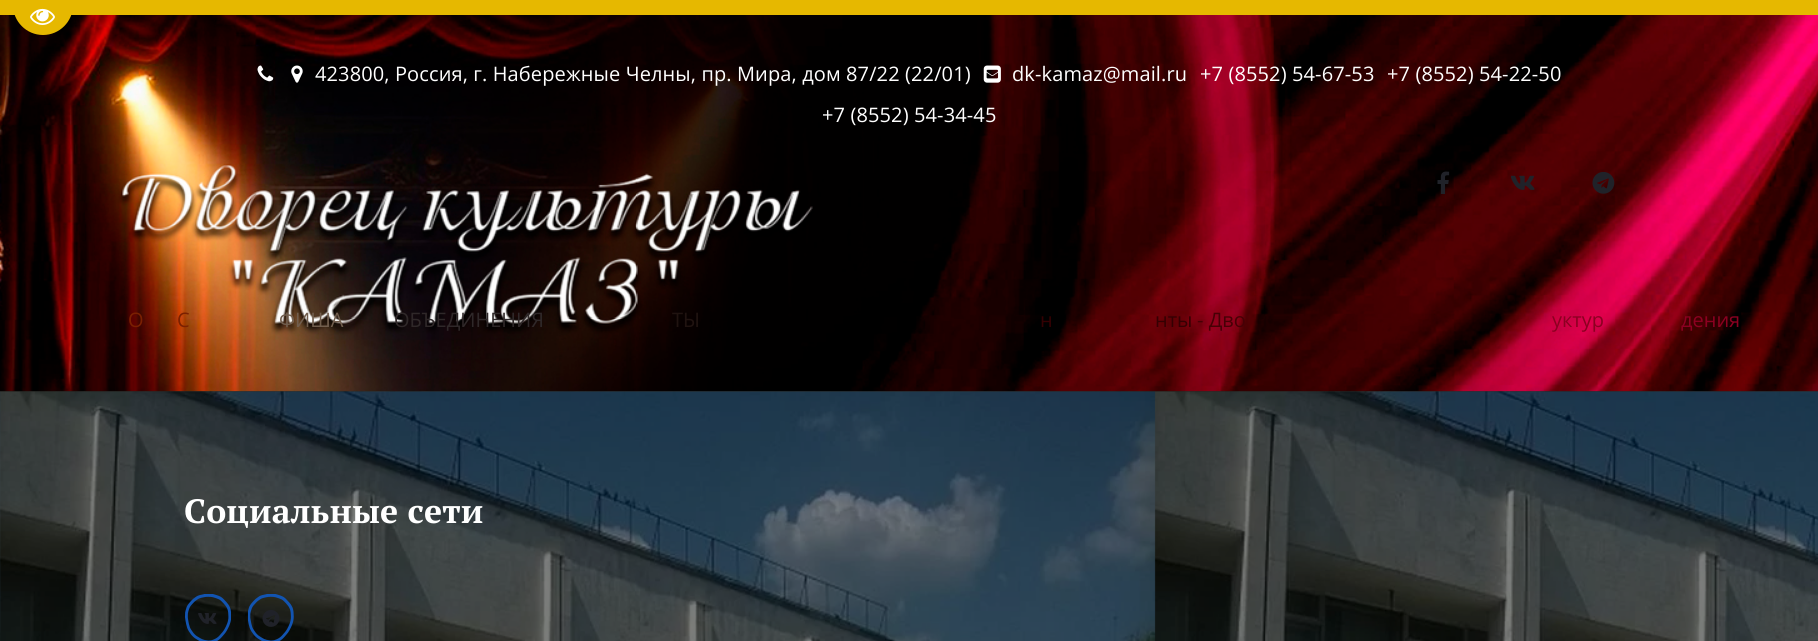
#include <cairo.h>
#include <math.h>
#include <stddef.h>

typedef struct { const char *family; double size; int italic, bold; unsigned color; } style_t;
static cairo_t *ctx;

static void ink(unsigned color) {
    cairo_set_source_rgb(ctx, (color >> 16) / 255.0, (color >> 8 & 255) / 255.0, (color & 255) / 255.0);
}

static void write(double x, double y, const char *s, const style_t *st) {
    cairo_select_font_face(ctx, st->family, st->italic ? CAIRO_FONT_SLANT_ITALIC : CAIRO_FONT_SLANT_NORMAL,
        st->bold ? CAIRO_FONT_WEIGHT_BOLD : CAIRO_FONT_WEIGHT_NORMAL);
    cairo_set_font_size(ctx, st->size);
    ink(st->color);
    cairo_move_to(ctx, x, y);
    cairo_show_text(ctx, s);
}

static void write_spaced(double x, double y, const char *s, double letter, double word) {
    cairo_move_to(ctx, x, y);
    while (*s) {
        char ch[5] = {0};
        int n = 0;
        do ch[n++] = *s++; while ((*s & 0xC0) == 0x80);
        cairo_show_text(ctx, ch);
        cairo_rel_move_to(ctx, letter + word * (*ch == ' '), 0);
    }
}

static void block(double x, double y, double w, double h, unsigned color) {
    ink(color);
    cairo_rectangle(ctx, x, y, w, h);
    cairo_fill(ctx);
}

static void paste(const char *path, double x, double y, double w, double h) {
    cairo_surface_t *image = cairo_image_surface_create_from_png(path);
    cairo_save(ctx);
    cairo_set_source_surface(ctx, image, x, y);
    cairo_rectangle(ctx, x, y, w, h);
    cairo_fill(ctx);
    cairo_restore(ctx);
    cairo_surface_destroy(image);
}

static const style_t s1 = {"Open Sans", 20, 0, 0, 0x7a2001};
static const style_t s2 = {"Open Sans", 20, 0, 0, 0x715e4e};
static const style_t s3 = {"Open Sans", 20, 0, 0, 0x2f2829};
static const style_t s4 = {"Open Sans", 20, 0, 0, 0x201310};
static const style_t s5 = {"Open Sans", 20, 0, 0, 0x340002};
static const style_t s6 = {"Open Sans", 20, 0, 0, 0x460005};
static const style_t s7 = {"Open Sans", 20, 0, 0, 0x8c0021};

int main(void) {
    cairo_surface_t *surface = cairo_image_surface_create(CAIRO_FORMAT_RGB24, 1818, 641);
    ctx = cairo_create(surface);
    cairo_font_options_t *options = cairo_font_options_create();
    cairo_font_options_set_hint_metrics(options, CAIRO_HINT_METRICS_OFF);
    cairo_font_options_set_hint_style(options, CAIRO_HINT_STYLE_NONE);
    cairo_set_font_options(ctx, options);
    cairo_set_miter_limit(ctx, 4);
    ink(0xffffff);
    cairo_paint(ctx);
    block(0, 0, 1818, 15, 0xe6b800);
    paste("pic2.png", 0, 15, 1818, 377);
    cairo_new_path(ctx);
    cairo_move_to(ctx, 13, -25);
    cairo_line_to(ctx, 73, -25);
    cairo_line_to(ctx, 73, 5);
    cairo_curve_to(ctx, 73, 21.5, 59.5, 35, 43, 35);
    cairo_curve_to(ctx, 26.5, 35, 13, 21.5, 13, 5);
    cairo_close_path(ctx);
    cairo_fill(ctx);
    paste("pic1.png", 30, 8, 25, 17);
    paste("pic3.png", 257, 65, 17, 17);
    paste("pic4.png", 291, 65, 12, 18);
    cairo_select_font_face(ctx, "Open Sans", CAIRO_FONT_SLANT_NORMAL, CAIRO_FONT_WEIGHT_NORMAL);
    cairo_set_font_size(ctx, 20);
    ink(0xffffff);
    write_spaced(315, 81, "423800, Россия, г. Набережные Челны, пр. Мира, дом 87/22 (22/01)", 0.12, 0);
    paste("pic5.png", 983, 65, 18, 18);
    write_spaced(1012, 81, "dk-kamaz@mail.ru", 0.12, 0);
    write_spaced(1200, 81, "+7 (8552) 54-67-53", 0.12, 0);
    write_spaced(1387, 81, "+7 (8552) 54-22-50", 0.12, 0);
    write_spaced(822, 122, "+7 (8552) 54-34-45", 0.12, 0);
    paste("pic6.png", 1437, 171, 13, 23);
    paste("pic7.png", 1511, 175, 24, 15);
    paste("pic8.png", 1592, 172, 23, 22);
    write(128, 327, "О", &s1);
    write(177, 327, "С", &s1);
    write(279, 327, "ФИША", &s2);
    write(394, 327, "ОБЪЕДИНЕНИЯ", &s3);
    write(672, 327, "ТЫ", &s4);
    write(1040, 327, "н", &s5);
    write(1155, 327, "нты", &s5);
    write(1197, 327, "- Дво", &s6);
    write(1552, 327, "уктур", &s7);
    write(1681, 327, "дения", &s7);
    paste("pic9.png", 0, 391, 1818, 250);
    cairo_set_source_rgba(ctx, 0, 0, 0, 0.51);
    cairo_rectangle(ctx, 0, 391, 1818, 250);
    cairo_fill(ctx);
    cairo_select_font_face(ctx, "PT Serif", CAIRO_FONT_SLANT_NORMAL, CAIRO_FONT_WEIGHT_BOLD);
    cairo_set_font_size(ctx, 33.75);
    ink(0xffffff);
    write_spaced(184, 523, "Социальные сети", 0.12, 0);
    paste("pic10.png", 185, 594, 46, 47);
    paste("pic11.png", 198, 613, 19, 11);
    paste("pic12.png", 248, 594, 46, 47);
    paste("pic13.png", 262, 610, 18, 17);
    cairo_surface_write_to_png(surface, "screenshot.png");
    cairo_font_options_destroy(options);
    cairo_destroy(ctx);
    cairo_surface_destroy(surface);
    return 0;
}
